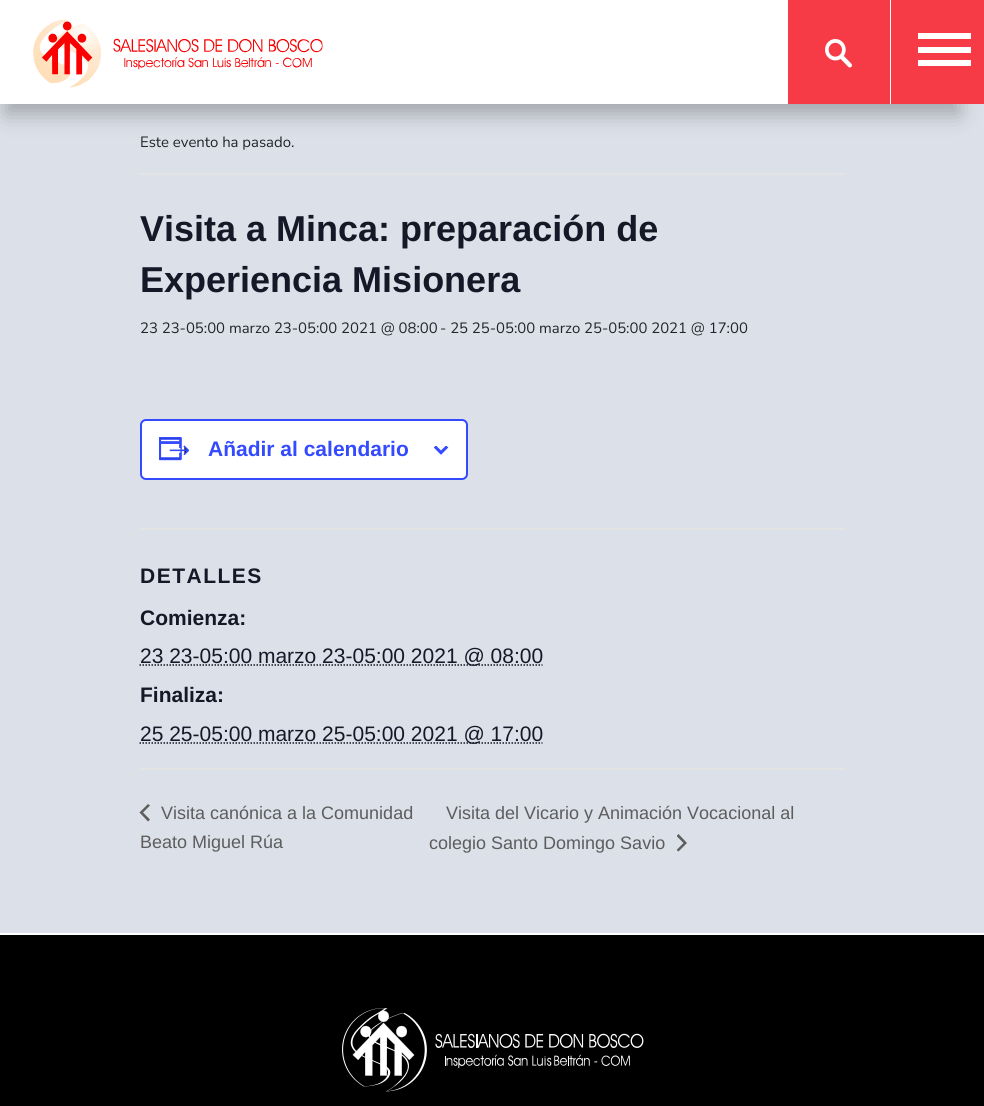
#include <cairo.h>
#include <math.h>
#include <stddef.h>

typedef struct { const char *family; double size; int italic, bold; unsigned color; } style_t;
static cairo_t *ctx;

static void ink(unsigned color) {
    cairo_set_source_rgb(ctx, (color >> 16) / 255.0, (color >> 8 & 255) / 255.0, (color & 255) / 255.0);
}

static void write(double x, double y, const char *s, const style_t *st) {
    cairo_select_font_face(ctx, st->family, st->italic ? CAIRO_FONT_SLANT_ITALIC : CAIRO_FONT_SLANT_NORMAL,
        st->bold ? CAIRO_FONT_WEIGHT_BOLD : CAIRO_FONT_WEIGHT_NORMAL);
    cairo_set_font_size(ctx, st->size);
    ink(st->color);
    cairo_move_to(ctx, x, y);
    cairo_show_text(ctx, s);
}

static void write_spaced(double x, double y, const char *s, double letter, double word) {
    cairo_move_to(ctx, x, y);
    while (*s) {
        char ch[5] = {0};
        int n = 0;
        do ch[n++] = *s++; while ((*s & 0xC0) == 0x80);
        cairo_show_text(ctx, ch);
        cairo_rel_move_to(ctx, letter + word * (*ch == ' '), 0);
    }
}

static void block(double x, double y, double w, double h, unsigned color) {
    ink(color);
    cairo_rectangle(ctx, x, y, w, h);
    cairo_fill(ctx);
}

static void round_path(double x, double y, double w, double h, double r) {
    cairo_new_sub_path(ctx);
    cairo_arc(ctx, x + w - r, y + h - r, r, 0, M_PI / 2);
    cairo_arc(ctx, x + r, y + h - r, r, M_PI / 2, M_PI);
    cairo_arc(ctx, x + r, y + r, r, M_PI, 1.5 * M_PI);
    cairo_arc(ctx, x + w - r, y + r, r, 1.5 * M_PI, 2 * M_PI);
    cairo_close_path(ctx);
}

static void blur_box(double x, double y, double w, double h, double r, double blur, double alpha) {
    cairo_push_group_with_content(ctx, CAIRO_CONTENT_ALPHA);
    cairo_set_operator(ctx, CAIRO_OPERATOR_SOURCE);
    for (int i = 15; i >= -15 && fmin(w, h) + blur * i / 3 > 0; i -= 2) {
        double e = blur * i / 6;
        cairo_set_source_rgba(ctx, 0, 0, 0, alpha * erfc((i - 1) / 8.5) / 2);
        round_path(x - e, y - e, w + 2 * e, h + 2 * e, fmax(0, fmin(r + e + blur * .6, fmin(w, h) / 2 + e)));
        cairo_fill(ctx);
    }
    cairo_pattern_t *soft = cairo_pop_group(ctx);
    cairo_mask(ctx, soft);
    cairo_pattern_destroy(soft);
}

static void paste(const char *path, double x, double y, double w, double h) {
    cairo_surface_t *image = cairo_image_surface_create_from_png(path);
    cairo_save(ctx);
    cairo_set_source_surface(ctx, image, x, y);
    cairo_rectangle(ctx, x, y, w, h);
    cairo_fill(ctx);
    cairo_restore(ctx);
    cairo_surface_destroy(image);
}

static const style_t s1 = {"Nunito Sans", 14.9, 0, 0, 0x212529};
static const style_t s2 = {"Liberation Sans", 36, 0, 1, 0x141827};
static const style_t s3 = {"Liberation Sans", 21, 0, 1, 0x334aff};
static const style_t s4 = {"Liberation Sans", 21, 0, 1, 0x141827};
static const style_t s5 = {"Liberation Sans", 21, 0, 0, 0x141827};
static const style_t s6 = {"Liberation Sans", 18, 0, 0, 0x5d5d5d};

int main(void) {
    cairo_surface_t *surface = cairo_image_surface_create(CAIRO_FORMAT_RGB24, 984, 1106);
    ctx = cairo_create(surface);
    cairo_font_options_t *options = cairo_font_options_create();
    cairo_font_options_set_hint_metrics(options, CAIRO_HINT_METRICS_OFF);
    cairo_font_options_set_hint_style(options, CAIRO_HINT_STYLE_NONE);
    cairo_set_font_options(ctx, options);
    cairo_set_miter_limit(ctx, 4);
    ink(0xdce0e8);
    cairo_paint(ctx);
    ink(0x000000);
    blur_box(6, 44, 953, 70, 0, 11, 0.27);
    block(0, 0, 788, 104, 0xffffff);
    paste("pic1.png", 33, 19, 290, 69);
    block(788, 0, 102, 104, 0xf63b46);
    block(890, 0, 1, 104, 0xffffff);
    paste("pic2.png", 825, 39, 27, 29);
    block(891, 0, 93, 104, 0xf63b46);
    block(918, 33, 53, 6, 0xffffff);
    block(918, 47, 53, 6, 0xffffff);
    block(918, 60, 53, 6, 0xffffff);
    block(140, 173, 705, 2, 0xe4e4e4);
    write(140, 147, "Este evento ha pasado.", &s1);
    write(140, 241, "Visita a Minca: preparación de", &s2);
    write(140, 292, "Experiencia Misionera", &s2);
    write(140, 333, "23 23-05:00 marzo 23-05:00 2021 @ 08:00", &s1);
    write(440, 333, "- 25 25-05:00 marzo 25-05:00 2021 @ 17:00", &s1);
    ink(0xffffff);
    round_path(141, 420, 326, 59, 5);
    cairo_fill_preserve(ctx);
    ink(0x334aff);
    cairo_stroke(ctx);
    paste("pic3.png", 159, 437, 31, 24);
    write(208, 456, "Añadir al calendario", &s3);
    paste("pic4.png", 434, 446, 15, 9);
    block(140, 528, 705, 2, 0xe4e4e4);
    ink(0x141827);
    write_spaced(140, 583, "DETALLES", 1.5, 0);
    write(140, 625, "Comienza:", &s4);
    cairo_new_path(ctx);
    cairo_move_to(ctx, 139.5, 665);
    cairo_line_to(ctx, 542.5, 665);
    cairo_set_line_width(ctx, 1.5);
    cairo_set_dash(ctx, (double[]){1.5, 1.5}, 2, 0);
    cairo_stroke(ctx);
    write(140, 663, "23 23-05:00 marzo 23-05:00 2021 @ 08:00", &s5);
    write(140, 702, "Finaliza:", &s4);
    cairo_new_path(ctx);
    cairo_move_to(ctx, 139.5, 743);
    cairo_line_to(ctx, 542.5, 743);
    cairo_stroke(ctx);
    write(140, 741, "25 25-05:00 marzo 25-05:00 2021 @ 17:00", &s5);
    block(140, 768, 705, 2, 0xe4e4e4);
    ink(0x5d5d5d);
    cairo_new_path(ctx);
    cairo_move_to(ctx, 150, 819.5);
    cairo_line_to(ctx, 148, 821.5);
    cairo_line_to(ctx, 139.5, 812.5);
    cairo_line_to(ctx, 148, 804);
    cairo_line_to(ctx, 150, 805.5);
    cairo_line_to(ctx, 143, 812.5);
    cairo_close_path(ctx);
    cairo_fill(ctx);
    write(161, 819, "Visita canónica a la Comunidad", &s6);
    write(140, 848, "Beato Miguel Rúa", &s6);
    write(446, 819, "Visita del Vicario y Animación Vocacional al", &s6);
    write(429, 849, "colegio Santo Domingo Savio", &s6);
    cairo_save(ctx);
    cairo_rectangle(ctx, 677, 834, 10, 18);
    cairo_clip(ctx);
    cairo_new_path(ctx);
    cairo_move_to(ctx, 676.5, 836);
    cairo_line_to(ctx, 678.5, 834);
    cairo_line_to(ctx, 687, 843);
    cairo_line_to(ctx, 678.5, 851.5);
    cairo_line_to(ctx, 676.5, 850);
    cairo_line_to(ctx, 683.5, 843);
    cairo_close_path(ctx);
    cairo_fill(ctx);
    cairo_restore(ctx);
    block(0, 935, 984, 171, 0x000000);
    block(0, 933, 984, 2, 0xffffff);
    paste("pic5.png", 342, 1008, 302, 84);
    cairo_surface_write_to_png(surface, "screenshot.png");
    cairo_font_options_destroy(options);
    cairo_destroy(ctx);
    cairo_surface_destroy(surface);
    return 0;
}
